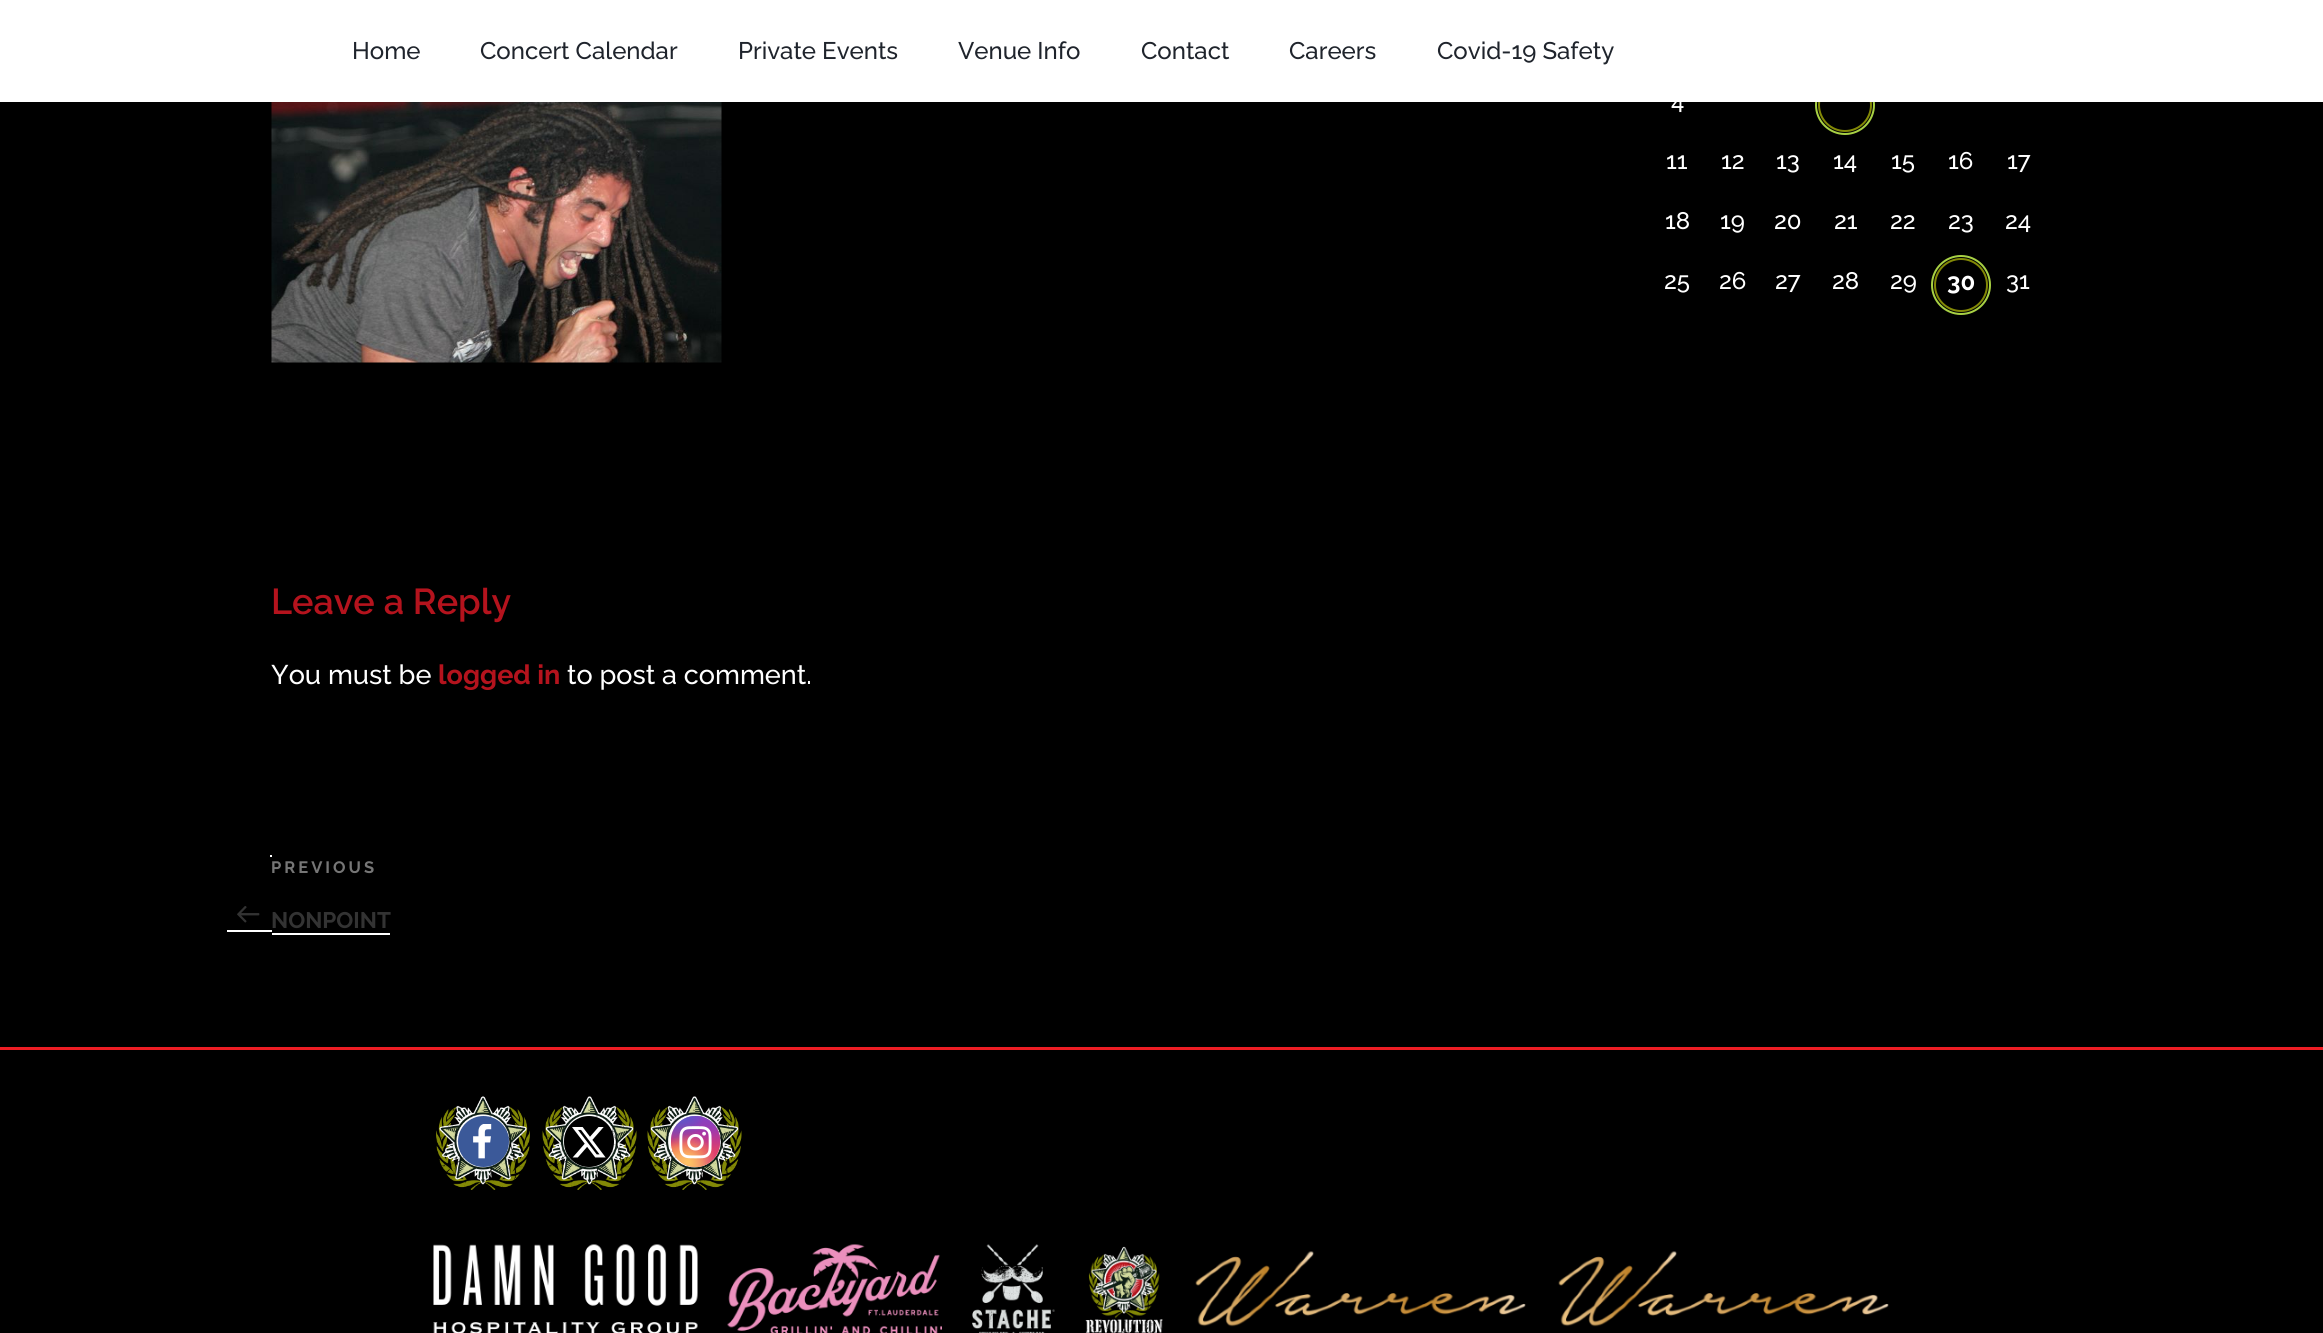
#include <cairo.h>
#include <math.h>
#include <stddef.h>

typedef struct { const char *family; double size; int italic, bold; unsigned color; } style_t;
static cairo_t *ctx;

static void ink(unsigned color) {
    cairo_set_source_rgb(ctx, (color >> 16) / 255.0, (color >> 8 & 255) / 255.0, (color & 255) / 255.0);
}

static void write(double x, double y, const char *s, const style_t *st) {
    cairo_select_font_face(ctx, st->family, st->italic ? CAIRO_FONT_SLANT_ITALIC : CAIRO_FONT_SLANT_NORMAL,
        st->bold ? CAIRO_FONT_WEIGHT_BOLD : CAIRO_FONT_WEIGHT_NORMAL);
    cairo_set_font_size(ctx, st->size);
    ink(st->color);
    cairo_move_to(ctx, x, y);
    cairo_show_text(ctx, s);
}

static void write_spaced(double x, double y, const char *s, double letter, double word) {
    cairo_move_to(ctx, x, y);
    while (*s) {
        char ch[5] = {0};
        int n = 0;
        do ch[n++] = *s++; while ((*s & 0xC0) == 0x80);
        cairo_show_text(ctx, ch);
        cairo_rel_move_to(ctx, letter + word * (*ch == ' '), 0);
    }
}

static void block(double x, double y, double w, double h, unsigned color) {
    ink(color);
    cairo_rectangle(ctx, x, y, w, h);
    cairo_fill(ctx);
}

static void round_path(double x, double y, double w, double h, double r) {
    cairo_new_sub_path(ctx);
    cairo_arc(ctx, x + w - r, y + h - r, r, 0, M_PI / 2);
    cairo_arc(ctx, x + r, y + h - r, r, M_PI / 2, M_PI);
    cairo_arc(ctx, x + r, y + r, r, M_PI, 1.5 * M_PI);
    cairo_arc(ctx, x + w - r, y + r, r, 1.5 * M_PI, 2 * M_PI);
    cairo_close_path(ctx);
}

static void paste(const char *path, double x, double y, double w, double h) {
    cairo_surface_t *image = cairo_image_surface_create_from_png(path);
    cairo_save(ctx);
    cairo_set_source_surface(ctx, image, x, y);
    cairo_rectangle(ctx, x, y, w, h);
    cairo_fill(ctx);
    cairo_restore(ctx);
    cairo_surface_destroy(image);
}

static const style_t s1 = {"Raleway Medium", 24, 0, 0, 0x1f242c};
static const style_t s2 = {"Raleway Medium", 24, 0, 0, 0xffffff};
static const style_t s3 = {"Raleway", 24, 0, 1, 0xffffff};
static const style_t s4 = {"Raleway SemiBold", 36, 0, 0, 0xb4131d};
static const style_t s5 = {"Raleway Medium", 27, 0, 0, 0xffffff};
static const style_t s6 = {"Raleway", 27, 0, 1, 0xb4131d};
static const style_t s7 = {"Raleway", 22.5, 0, 1, 0x333333};

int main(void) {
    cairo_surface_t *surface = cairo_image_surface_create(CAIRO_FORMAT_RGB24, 2323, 1333);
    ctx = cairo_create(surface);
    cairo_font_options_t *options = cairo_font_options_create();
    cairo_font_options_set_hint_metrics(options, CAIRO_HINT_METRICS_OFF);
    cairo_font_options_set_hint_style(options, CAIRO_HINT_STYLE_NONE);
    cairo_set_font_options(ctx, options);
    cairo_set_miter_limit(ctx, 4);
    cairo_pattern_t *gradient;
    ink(0x000000);
    cairo_paint(ctx);
    cairo_arc(ctx, 1845, 105, 29, 0, 2 * M_PI);
    ink(0xa8d144);
    cairo_stroke(ctx);
    cairo_arc(ctx, 1845, 105, 26, 0, 2 * M_PI);
    ink(0x838906);
    cairo_stroke(ctx);
    block(0, 0, 2323, 102, 0xffffff);
    write(352, 59, "Home", &s1);
    write(480, 59, "Concert Calendar", &s1);
    write(738, 59, "Private Events", &s1);
    write(958, 59, "Venue Info", &s1);
    write(1141, 59, "Contact", &s1);
    write(1289, 59, "Careers", &s1);
    write(1437, 59, "Covid-19 Safety", &s1);
    write(1671, 109, "4", &s2);
    write(1666, 169, "11", &s2);
    write(1721, 169, "12", &s2);
    write(1776, 169, "13", &s2);
    write(1833, 169, "14", &s2);
    write(1891, 169, "15", &s2);
    write(1948, 169, "16", &s2);
    write(2007, 169, "17", &s2);
    write(1665, 229, "18", &s2);
    write(1720, 229, "19", &s2);
    write(1774, 229, "20", &s2);
    write(1834, 229, "21", &s2);
    write(1890, 229, "22", &s2);
    write(1948, 229, "23", &s2);
    write(2005, 229, "24", &s2);
    write(1664, 289, "25", &s2);
    write(1719, 289, "26", &s2);
    write(1775, 289, "27", &s2);
    write(1832, 289, "28", &s2);
    write(1890, 289, "29", &s2);
    cairo_new_path(ctx);
    cairo_arc(ctx, 1961, 285, 29, 0, 2 * M_PI);
    ink(0xa8d144);
    cairo_stroke(ctx);
    cairo_arc(ctx, 1961, 285, 26, 0, 2 * M_PI);
    ink(0x838906);
    cairo_stroke(ctx);
    write(1947, 290, "30", &s3);
    write(2006, 289, "31", &s2);
    paste("pic1.png", 271, 102, 451, 261);
    write(271, 614, "Leave a Reply", &s4);
    write(271, 684, "You must be", &s5);
    write(438, 684, "logged in", &s6);
    write(567, 684, "to post a comment.", &s5);
    block(270, 855, 2, 2, 0xffffff);
    block(227, 930, 45, 2, 0xffffff);
    block(272, 933, 118, 2, 0xffffff);
    cairo_select_font_face(ctx, "Raleway", CAIRO_FONT_SLANT_NORMAL, CAIRO_FONT_WEIGHT_BOLD);
    cairo_set_font_size(ctx, 16.5);
    ink(0x767676);
    write_spaced(271, 873, "PREVIOUS", 3, 0);
    paste("pic2.png", 237, 906, 23, 17);
    write(271, 928, "NONPOINT", &s7);
    block(0, 1047, 2323, 3, 0xed1d24);
    paste("pic3.png", 436, 1096, 94, 94);
    ink(0x3b5999);
    cairo_arc(ctx, 483.5, 1141.5, 25.5, 0, 2 * M_PI);
    cairo_fill(ctx);
    paste("pic4.png", 473, 1124, 19, 35);
    paste("pic5.png", 542, 1096, 95, 94);
    ink(0x000000);
    round_path(564, 1116, 50, 51, 25);
    cairo_fill(ctx);
    paste("pic6.png", 572, 1127, 34, 31);
    paste("pic7.png", 647, 1096, 95, 94);
    gradient = cairo_pattern_create_linear(695, 1116, 695, 1167);
    cairo_pattern_add_color_stop_rgba(gradient, 0, 0.396, 0.349, 0.792, 1);
    cairo_pattern_add_color_stop_rgba(gradient, 0.3, 0.737, 0.192, 0.561, 1);
    cairo_pattern_add_color_stop_rgba(gradient, 0.5, 0.89, 0.247, 0.373, 1);
    cairo_pattern_add_color_stop_rgba(gradient, 0.7, 0.969, 0.463, 0.22, 1);
    cairo_pattern_add_color_stop_rgba(gradient, 1, 0.996, 0.776, 0.427, 1);
    cairo_set_source(ctx, gradient);
    cairo_pattern_destroy(gradient);
    round_path(671, 1116, 49, 51, 24.5);
    cairo_fill(ctx);
    gradient = cairo_pattern_create_radial(0, 0, 0, 0, 0, 1);
    cairo_pattern_set_matrix(gradient, &(cairo_matrix_t){1.0 / 70, 0, 0, 1.0 / 72, -1.0 * 720 / 70, -1.0 * 1167 / 72});
    cairo_pattern_add_color_stop_rgba(gradient, 0, 0.851, 0.192, 0.478, 1);
    cairo_pattern_add_color_stop_rgba(gradient, 1, 0.851, 0.192, 0.478, 0);
    cairo_set_source(ctx, gradient);
    cairo_pattern_destroy(gradient);
    round_path(671, 1116, 49, 51, 24.5);
    cairo_fill(ctx);
    gradient = cairo_pattern_create_radial(0, 0, 0, 0, 0, 1);
    cairo_pattern_set_matrix(gradient, &(cairo_matrix_t){1.0 / 42, 0, 0, 1.0 / 87, -1.0 * 700 / 42, -1.0 * 1106 / 87});
    cairo_pattern_add_color_stop_rgba(gradient, 0, 0.537, 0.239, 0.761, 1);
    cairo_pattern_add_color_stop_rgba(gradient, 0.5, 0.537, 0.239, 0.761, 0);
    cairo_set_source(ctx, gradient);
    cairo_pattern_destroy(gradient);
    round_path(671, 1116, 49, 51, 24.5);
    cairo_fill(ctx);
    gradient = cairo_pattern_create_radial(0, 0, 0, 0, 0, 1);
    cairo_pattern_set_matrix(gradient, &(cairo_matrix_t){1.0 / 70, 0, 0, 1.0 / 72, -1.0 * 720 / 70, -1.0 * 1116 / 72});
    cairo_pattern_add_color_stop_rgba(gradient, 0, 0.537, 0.239, 0.761, 1);
    cairo_pattern_add_color_stop_rgba(gradient, 0.5, 0.537, 0.239, 0.761, 0);
    cairo_set_source(ctx, gradient);
    cairo_pattern_destroy(gradient);
    round_path(671, 1116, 49, 51, 24.5);
    cairo_fill(ctx);
    gradient = cairo_pattern_create_radial(0, 0, 0, 0, 0, 1);
    cairo_pattern_set_matrix(gradient, &(cairo_matrix_t){1.0 / 56, 0, 0, 1.0 / 108, -1.0 * 680 / 56, -1.0 * 1091 / 108});
    cairo_pattern_add_color_stop_rgba(gradient, 0, 0.322, 0.345, 0.812, 1);
    cairo_pattern_add_color_stop_rgba(gradient, 0.5, 0.322, 0.345, 0.812, 0);
    cairo_set_source(ctx, gradient);
    cairo_pattern_destroy(gradient);
    round_path(671, 1116, 49, 51, 24.5);
    cairo_fill(ctx);
    gradient = cairo_pattern_create_radial(0, 0, 0, 0, 0, 1);
    cairo_pattern_set_matrix(gradient, &(cairo_matrix_t){1.0 / 70, 0, 0, 1.0 / 90, -1.0 * 671 / 70, -1.0 * 1103 / 90});
    cairo_pattern_add_color_stop_rgba(gradient, 0, 0.322, 0.345, 0.812, 1);
    cairo_pattern_add_color_stop_rgba(gradient, 0.5, 0.322, 0.345, 0.812, 0);
    cairo_set_source(ctx, gradient);
    cairo_pattern_destroy(gradient);
    round_path(671, 1116, 49, 51, 24.5);
    cairo_fill(ctx);
    gradient = cairo_pattern_create_radial(671, 1187, 0, 671, 1187, 87);
    cairo_pattern_add_color_stop_rgba(gradient, 0, 0.996, 0.773, 0.392, 1);
    cairo_pattern_add_color_stop_rgba(gradient, 0.5, 0.996, 0.773, 0.392, 0);
    cairo_set_source(ctx, gradient);
    cairo_pattern_destroy(gradient);
    round_path(671, 1116, 49, 51, 24.5);
    cairo_fill(ctx);
    gradient = cairo_pattern_create_radial(688, 1162, 0, 688, 1162, 56);
    cairo_pattern_add_color_stop_rgba(gradient, 0, 0.996, 0.773, 0.392, 1);
    cairo_pattern_add_color_stop_rgba(gradient, 0.5, 0.996, 0.773, 0.392, 0);
    cairo_set_source(ctx, gradient);
    cairo_pattern_destroy(gradient);
    round_path(671, 1116, 49, 51, 24.5);
    cairo_fill(ctx);
    paste("pic8.png", 679, 1126, 33, 33);
    paste("pic9.png", 433, 1244, 265, 89);
    paste("pic10.png", 727, 1244, 215, 89);
    paste("pic11.png", 972, 1244, 83, 89);
    paste("pic12.png", 1085, 1246, 78, 87);
    paste("pic13.png", 1195, 1251, 331, 76);
    paste("pic13.png", 1558, 1251, 331, 76);
    cairo_surface_write_to_png(surface, "screenshot.png");
    cairo_font_options_destroy(options);
    cairo_destroy(ctx);
    cairo_surface_destroy(surface);
    return 0;
}
